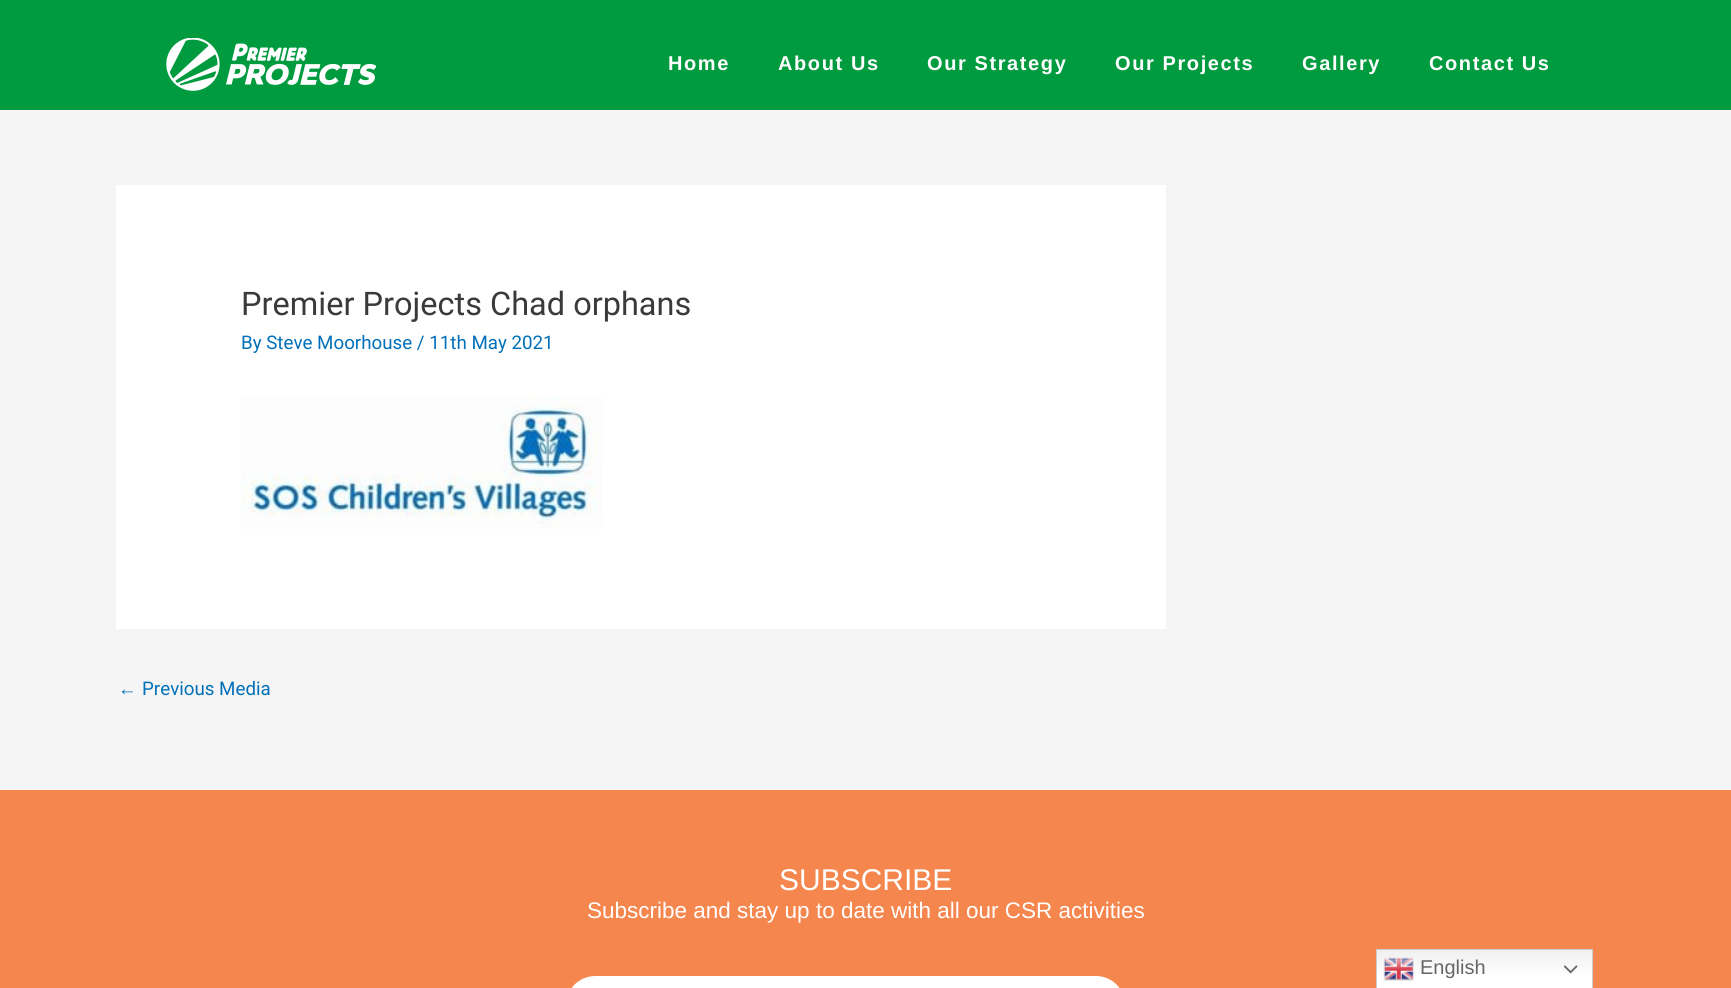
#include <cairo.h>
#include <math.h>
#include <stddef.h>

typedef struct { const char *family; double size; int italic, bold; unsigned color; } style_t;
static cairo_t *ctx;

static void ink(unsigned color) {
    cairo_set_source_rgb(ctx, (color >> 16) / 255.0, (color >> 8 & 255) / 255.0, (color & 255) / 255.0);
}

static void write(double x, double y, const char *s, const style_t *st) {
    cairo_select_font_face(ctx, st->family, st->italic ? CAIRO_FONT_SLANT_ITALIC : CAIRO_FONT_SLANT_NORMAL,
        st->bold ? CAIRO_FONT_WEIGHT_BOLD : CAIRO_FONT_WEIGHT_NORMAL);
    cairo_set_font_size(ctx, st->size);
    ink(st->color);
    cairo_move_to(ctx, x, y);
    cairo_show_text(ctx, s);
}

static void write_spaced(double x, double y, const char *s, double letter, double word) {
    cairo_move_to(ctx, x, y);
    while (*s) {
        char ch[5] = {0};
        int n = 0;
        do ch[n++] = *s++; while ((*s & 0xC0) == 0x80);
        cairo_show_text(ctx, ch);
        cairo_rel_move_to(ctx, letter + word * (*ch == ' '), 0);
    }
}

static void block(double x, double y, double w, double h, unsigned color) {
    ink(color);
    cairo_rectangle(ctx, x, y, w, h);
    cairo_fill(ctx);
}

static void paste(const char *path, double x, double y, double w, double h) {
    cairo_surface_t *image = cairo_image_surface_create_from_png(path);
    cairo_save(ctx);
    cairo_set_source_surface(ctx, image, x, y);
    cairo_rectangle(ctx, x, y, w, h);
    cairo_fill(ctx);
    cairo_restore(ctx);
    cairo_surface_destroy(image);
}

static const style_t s1 = {"Roboto", 32.5, 0, 0, 0x3a3a3a};
static const style_t s2 = {"Roboto", 18.75, 0, 0, 0x0170b9};
static const style_t s3 = {"Liberation Sans", 18.75, 0, 0, 0x0170b9};
static const style_t s4 = {"Liberation Sans", 30, 0, 0, 0xffffff};
static const style_t s5 = {"Liberation Sans", 22.5, 0, 0, 0xffffff};
static const style_t s6 = {"Liberation Sans", 20, 0, 0, 0x666666};

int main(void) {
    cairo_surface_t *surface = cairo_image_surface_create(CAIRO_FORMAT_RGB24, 1731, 988);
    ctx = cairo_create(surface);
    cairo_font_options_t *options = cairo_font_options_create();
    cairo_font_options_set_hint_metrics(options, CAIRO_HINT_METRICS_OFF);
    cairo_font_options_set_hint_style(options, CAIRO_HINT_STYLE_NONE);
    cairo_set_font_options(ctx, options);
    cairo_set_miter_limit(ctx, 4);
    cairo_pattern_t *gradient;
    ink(0xf5f5f5);
    cairo_paint(ctx);
    block(0, 0, 1731, 110, 0x009a3f);
    paste("pic1.png", 166, 38, 210, 53);
    cairo_select_font_face(ctx, "Liberation Sans", CAIRO_FONT_SLANT_NORMAL, CAIRO_FONT_WEIGHT_BOLD);
    cairo_set_font_size(ctx, 20);
    ink(0xffffff);
    write_spaced(668, 70, "Home", 1.6, 0);
    write_spaced(778, 70, "About Us", 1.6, 0);
    write_spaced(927, 70, "Our Strategy", 1.6, 0);
    write_spaced(1115, 70, "Our Projects", 1.6, 0);
    write_spaced(1302, 70, "Gallery", 1.6, 0);
    write_spaced(1429, 70, "Contact Us", 1.6, 0);
    block(116, 185, 1050, 444, 0xffffff);
    write(241, 315, "Premier Projects Chad orphans", &s1);
    write(241, 349, "By Steve Moorhouse / 11th May 2021", &s2);
    paste("pic2.png", 241, 395, 361, 134);
    write(118, 695, "←", &s3);
    write(142, 695, "Previous Media", &s2);
    block(0, 790, 1731, 198, 0xf5864e);
    write(779, 890, "SUBSCRIBE", &s4);
    write(587, 918, "Subscribe and stay up to date with all our CSR activities", &s5);
    cairo_new_path(ctx);
    cairo_move_to(ctx, 595.5, 976);
    cairo_line_to(ctx, 1069, 976);
    cairo_line_to(ctx, 1069, 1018);
    cairo_line_to(ctx, 595.5, 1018);
    cairo_curve_to(ctx, 579, 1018, 566, 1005, 566, 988.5);
    cairo_line_to(ctx, 566, 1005.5);
    cairo_curve_to(ctx, 566, 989, 579, 976, 595.5, 976);
    cairo_close_path(ctx);
    cairo_fill(ctx);
    cairo_new_path(ctx);
    cairo_move_to(ctx, 1069, 976);
    cairo_line_to(ctx, 1096, 976);
    cairo_curve_to(ctx, 1112, 976, 1125, 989, 1125, 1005);
    cairo_line_to(ctx, 1125, 988);
    cairo_curve_to(ctx, 1125, 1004, 1112, 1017, 1096, 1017);
    cairo_line_to(ctx, 1069, 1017);
    cairo_close_path(ctx);
    cairo_fill(ctx);
    gradient = cairo_pattern_create_linear(1484, 949, 1484, 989);
    cairo_pattern_add_color_stop_rgba(gradient, 0, 0.937, 0.937, 0.937, 1);
    cairo_pattern_add_color_stop_rgba(gradient, 0.7, 1, 1, 1, 1);
    cairo_set_source(ctx, gradient);
    cairo_pattern_destroy(gradient);
    cairo_rectangle(ctx, 1377, 950, 215, 38);
    cairo_fill(ctx);
    cairo_rectangle(ctx, 1376.5, 949.5, 216, 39);
    ink(0xcccccc);
    cairo_set_line_width(ctx, 1);
    cairo_stroke(ctx);
    paste("pic3.png", 1383, 957, 31, 24);
    write(1420, 974, "English", &s6);
    paste("pic4.png", 1564, 965, 14, 9);
    cairo_surface_write_to_png(surface, "screenshot.png");
    cairo_font_options_destroy(options);
    cairo_destroy(ctx);
    cairo_surface_destroy(surface);
    return 0;
}
